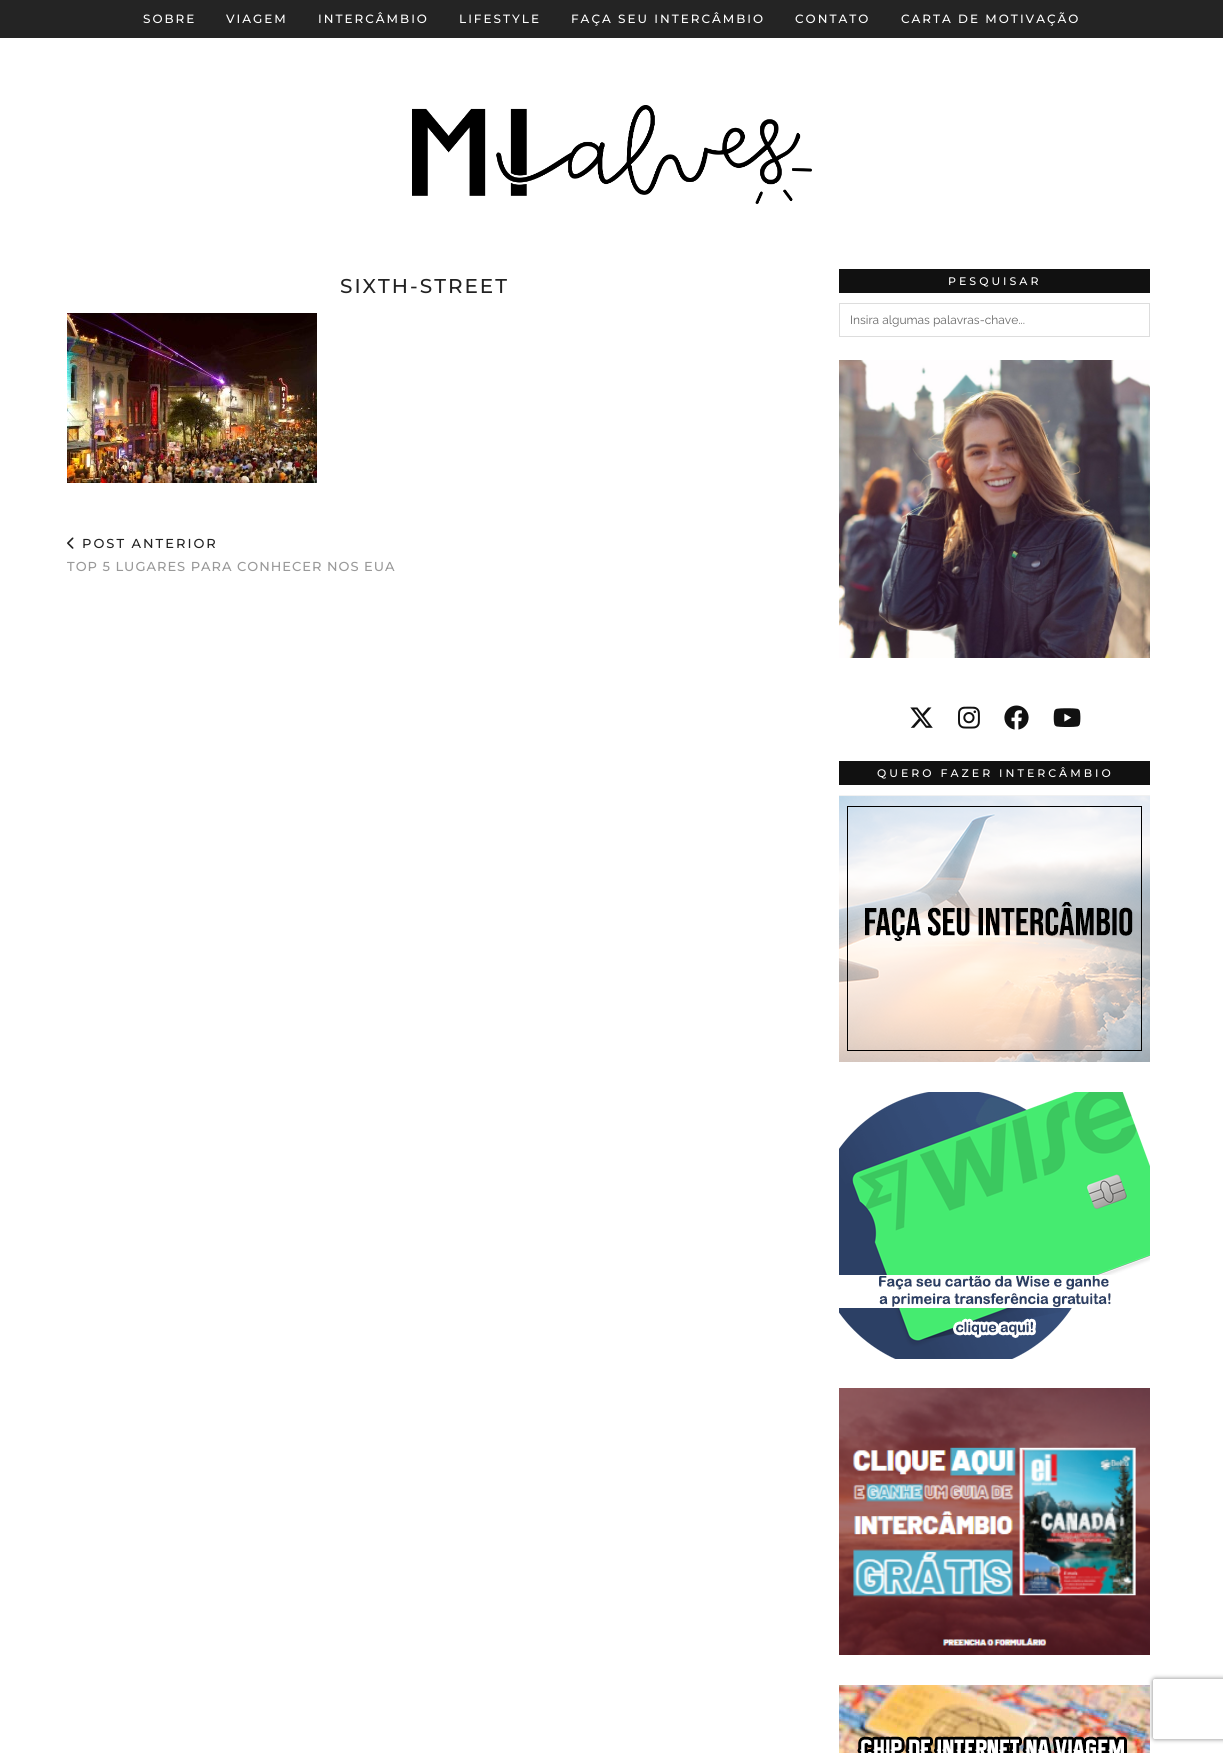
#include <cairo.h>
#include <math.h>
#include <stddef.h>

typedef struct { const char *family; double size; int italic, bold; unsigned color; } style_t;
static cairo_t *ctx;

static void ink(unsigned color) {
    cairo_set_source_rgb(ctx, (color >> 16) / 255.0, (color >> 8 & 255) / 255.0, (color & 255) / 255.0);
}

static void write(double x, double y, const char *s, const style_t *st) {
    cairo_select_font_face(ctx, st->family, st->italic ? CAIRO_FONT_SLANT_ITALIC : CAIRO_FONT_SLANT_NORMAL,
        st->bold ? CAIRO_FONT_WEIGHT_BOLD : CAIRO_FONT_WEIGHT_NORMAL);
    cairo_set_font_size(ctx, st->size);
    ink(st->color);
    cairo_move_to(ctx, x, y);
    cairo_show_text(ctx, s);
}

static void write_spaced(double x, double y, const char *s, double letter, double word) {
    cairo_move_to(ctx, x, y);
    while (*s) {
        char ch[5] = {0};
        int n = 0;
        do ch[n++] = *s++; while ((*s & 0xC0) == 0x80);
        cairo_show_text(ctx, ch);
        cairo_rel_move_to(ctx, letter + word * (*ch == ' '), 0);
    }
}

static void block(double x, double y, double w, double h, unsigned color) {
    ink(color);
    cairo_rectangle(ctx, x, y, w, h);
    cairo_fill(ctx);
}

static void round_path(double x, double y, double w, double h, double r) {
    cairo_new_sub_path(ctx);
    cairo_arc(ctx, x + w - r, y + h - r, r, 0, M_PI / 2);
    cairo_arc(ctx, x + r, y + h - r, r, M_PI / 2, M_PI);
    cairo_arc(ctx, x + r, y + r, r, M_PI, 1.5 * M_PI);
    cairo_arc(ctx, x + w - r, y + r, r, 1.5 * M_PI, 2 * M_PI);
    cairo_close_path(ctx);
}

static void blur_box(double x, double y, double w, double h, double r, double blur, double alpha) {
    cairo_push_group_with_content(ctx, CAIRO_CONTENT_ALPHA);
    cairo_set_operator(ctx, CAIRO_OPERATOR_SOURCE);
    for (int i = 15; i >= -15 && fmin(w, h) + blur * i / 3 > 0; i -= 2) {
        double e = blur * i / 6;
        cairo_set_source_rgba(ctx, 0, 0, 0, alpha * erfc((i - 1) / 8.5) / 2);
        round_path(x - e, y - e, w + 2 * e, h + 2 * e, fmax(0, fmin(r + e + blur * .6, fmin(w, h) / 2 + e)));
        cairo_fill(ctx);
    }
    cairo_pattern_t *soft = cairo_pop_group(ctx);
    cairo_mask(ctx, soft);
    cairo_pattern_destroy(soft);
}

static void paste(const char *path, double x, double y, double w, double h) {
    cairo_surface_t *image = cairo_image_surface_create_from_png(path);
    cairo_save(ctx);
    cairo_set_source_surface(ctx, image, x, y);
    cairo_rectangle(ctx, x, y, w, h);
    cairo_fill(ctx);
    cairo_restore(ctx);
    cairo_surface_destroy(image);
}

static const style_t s1 = {"Raleway Thin", 12, 0, 0, 0x666666};

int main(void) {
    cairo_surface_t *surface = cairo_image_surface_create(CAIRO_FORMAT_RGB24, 1223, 1753);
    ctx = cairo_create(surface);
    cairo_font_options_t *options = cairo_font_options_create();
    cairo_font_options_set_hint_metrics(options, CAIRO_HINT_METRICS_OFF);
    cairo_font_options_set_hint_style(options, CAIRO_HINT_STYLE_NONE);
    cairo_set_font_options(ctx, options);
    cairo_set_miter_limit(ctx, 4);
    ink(0xffffff);
    cairo_paint(ctx);
    block(0, 0, 1223, 38, 0x242424);
    cairo_select_font_face(ctx, "Montserrat Thin", CAIRO_FONT_SLANT_NORMAL, CAIRO_FONT_WEIGHT_NORMAL);
    cairo_set_font_size(ctx, 12);
    ink(0xffffff);
    write_spaced(143, 23, "SOBRE", 2, 0);
    write_spaced(226, 23, "VIAGEM", 2, 0);
    write_spaced(318, 23, "INTERCÂMBIO", 2, 0);
    write_spaced(459, 23, "LIFESTYLE", 2, 0);
    write_spaced(571, 23, "FAÇA SEU INTERCÂMBIO", 2, 0);
    write_spaced(795, 23, "CONTATO", 2, 0);
    write_spaced(901, 23, "CARTA DE MOTIVAÇÃO", 2, 0);
    paste("pic1.png", 412, 105, 400, 99);
    cairo_set_font_size(ctx, 20);
    ink(0x222222);
    write_spaced(340, 293, "SIXTH-STREET", 2, 0);
    paste("pic2.png", 67, 313, 250, 170);
    paste("pic3.png", 67, 537, 7, 12);
    cairo_set_font_size(ctx, 13);
    write_spaced(82, 548, "POST ANTERIOR", 2, 0);
    ink(0x999999);
    write_spaced(67, 571, "TOP 5 LUGARES PARA CONHECER NOS EUA", 1, 0);
    block(839, 269, 311, 24, 0x111111);
    cairo_set_font_size(ctx, 11);
    ink(0xffffff);
    write_spaced(948, 285, "PESQUISAR", 3, 0);
    cairo_rectangle(ctx, 839.5, 303.5, 310, 33);
    ink(0xdddddd);
    cairo_set_line_width(ctx, 1);
    cairo_stroke(ctx);
    write(850, 324, "Insira algumas palavras-chave...", &s1);
    paste("pic4.png", 839, 360, 311, 298);
    paste("pic5.png", 910, 707, 23, 21);
    paste("pic6.png", 958, 706, 22, 23);
    paste("pic7.png", 1004, 705, 25, 25);
    paste("pic8.png", 1053, 708, 28, 19);
    block(839, 761, 311, 24, 0x111111);
    cairo_select_font_face(ctx, "Montserrat Thin", CAIRO_FONT_SLANT_NORMAL, CAIRO_FONT_WEIGHT_NORMAL);
    cairo_set_font_size(ctx, 11);
    ink(0xffffff);
    write_spaced(877, 777, "QUERO FAZER INTERCÂMBIO", 3, 0);
    paste("pic9.png", 839, 795, 311, 267);
    paste("pic10.png", 839, 1092, 311, 267);
    paste("pic11.png", 839, 1388, 311, 267);
    paste("pic12.png", 839, 1685, 311, 68);
    cairo_save(ctx);
    cairo_set_fill_rule(ctx, CAIRO_FILL_RULE_EVEN_ODD);
    cairo_new_path(ctx);
    cairo_move_to(ctx, 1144, 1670);
    cairo_line_to(ctx, 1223, 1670);
    cairo_line_to(ctx, 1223, 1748);
    cairo_line_to(ctx, 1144, 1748);
    cairo_close_path(ctx);
    cairo_move_to(ctx, 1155, 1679);
    cairo_line_to(ctx, 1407, 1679);
    cairo_curve_to(ctx, 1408, 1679, 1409, 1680, 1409, 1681);
    cairo_line_to(ctx, 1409, 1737);
    cairo_curve_to(ctx, 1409, 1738, 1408, 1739, 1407, 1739);
    cairo_line_to(ctx, 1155, 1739);
    cairo_curve_to(ctx, 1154, 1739, 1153, 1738, 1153, 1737);
    cairo_line_to(ctx, 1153, 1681);
    cairo_curve_to(ctx, 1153, 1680, 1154, 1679, 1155, 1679);
    cairo_close_path(ctx);
    cairo_clip(ctx);
    ink(0x808080);
    blur_box(1153, 1679, 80, 60, 2, 2.5, 1);
    cairo_restore(ctx);
    cairo_surface_write_to_png(surface, "screenshot.png");
    cairo_font_options_destroy(options);
    cairo_destroy(ctx);
    cairo_surface_destroy(surface);
    return 0;
}
